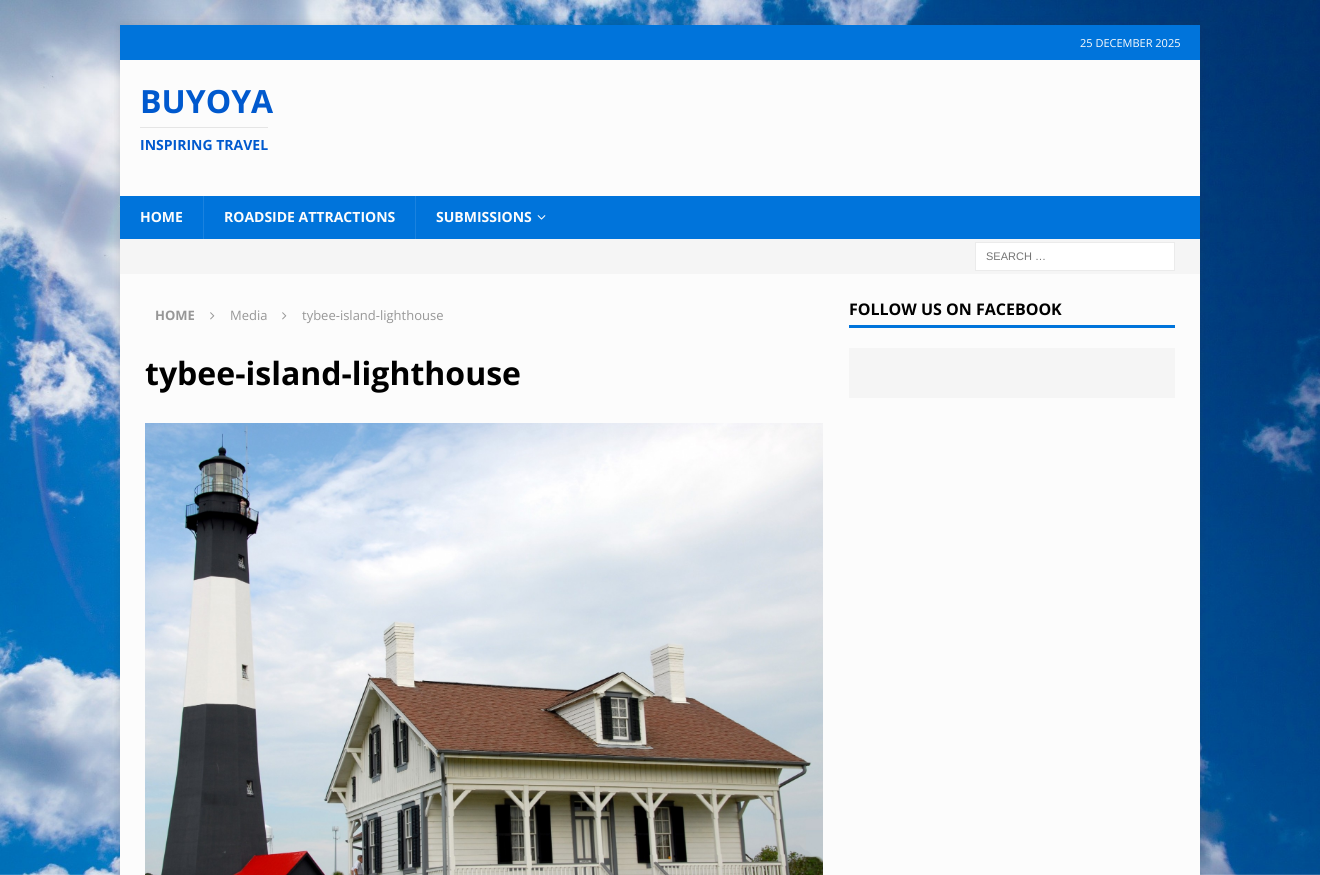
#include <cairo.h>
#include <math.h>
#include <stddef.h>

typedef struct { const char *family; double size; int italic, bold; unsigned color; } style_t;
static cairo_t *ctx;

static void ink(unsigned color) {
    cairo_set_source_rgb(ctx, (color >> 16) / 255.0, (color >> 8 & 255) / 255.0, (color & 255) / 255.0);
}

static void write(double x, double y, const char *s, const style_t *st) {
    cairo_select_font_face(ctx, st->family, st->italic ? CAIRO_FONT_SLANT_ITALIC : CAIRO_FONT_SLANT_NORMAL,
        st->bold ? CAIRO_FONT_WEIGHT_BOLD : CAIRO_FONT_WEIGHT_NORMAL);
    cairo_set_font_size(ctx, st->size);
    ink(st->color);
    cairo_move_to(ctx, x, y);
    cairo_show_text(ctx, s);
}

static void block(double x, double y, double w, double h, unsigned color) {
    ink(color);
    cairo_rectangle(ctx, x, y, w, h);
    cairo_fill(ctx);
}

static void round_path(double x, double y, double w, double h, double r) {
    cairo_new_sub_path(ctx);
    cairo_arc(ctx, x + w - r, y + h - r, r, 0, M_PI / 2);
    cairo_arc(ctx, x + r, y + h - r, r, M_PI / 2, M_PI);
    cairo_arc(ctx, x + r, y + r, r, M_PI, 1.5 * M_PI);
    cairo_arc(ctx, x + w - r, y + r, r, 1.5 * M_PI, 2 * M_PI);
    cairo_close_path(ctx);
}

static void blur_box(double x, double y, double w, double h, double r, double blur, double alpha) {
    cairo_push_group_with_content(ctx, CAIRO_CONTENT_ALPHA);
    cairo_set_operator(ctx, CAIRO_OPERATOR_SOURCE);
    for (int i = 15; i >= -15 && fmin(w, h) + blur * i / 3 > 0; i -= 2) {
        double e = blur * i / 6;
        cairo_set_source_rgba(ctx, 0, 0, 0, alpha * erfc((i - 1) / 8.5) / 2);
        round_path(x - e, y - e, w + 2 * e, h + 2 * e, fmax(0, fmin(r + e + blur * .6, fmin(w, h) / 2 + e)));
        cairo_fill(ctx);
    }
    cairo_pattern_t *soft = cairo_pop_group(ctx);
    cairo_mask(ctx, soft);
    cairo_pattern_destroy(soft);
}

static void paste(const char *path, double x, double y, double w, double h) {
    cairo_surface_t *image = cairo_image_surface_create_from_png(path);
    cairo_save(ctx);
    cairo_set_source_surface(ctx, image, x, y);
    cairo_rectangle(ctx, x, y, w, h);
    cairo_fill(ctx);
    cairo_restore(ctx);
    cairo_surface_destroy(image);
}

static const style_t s1 = {"Open Sans", 11, 0, 0, 0xfcfcfc};
static const style_t s2 = {"Open Sans", 32, 0, 1, 0x0059ce};
static const style_t s3 = {"Open Sans", 14, 0, 1, 0x0059ce};
static const style_t s4 = {"Open Sans", 14, 0, 1, 0xfcfcfc};
static const style_t s5 = {"Liberation Sans", 11, 0, 0, 0x757575};
static const style_t s6 = {"Open Sans", 13, 0, 1, 0x979797};
static const style_t s7 = {"Open Sans", 13, 0, 0, 0x979797};
static const style_t s8 = {"Open Sans", 32, 0, 1, 0x000000};
static const style_t s9 = {"Open Sans", 16, 0, 1, 0x000000};

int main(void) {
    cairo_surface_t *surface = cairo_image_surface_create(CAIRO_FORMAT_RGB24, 1320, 875);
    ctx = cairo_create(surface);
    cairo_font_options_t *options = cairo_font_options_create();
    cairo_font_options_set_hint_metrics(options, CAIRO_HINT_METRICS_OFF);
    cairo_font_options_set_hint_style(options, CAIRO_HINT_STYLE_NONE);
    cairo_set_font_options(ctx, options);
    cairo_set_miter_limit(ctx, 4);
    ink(0xffffff);
    cairo_paint(ctx);
    paste("pic1.png", 0, 0, 1320, 875);
    ink(0x323232);
    blur_box(120, 25, 1080, 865, 0, 5, 0.17);
    block(120, 25, 1080, 35, 0x0074db);
    write(1080, 47, "25 DECEMBER 2025", &s1);
    block(120, 60, 1080, 136, 0xfcfcfc);
    write(140, 113, "BUYOYA", &s2);
    block(140, 127, 128, 1, 0xe5e5e5);
    write(140, 150, "INSPIRING TRAVEL", &s3);
    block(120, 196, 1080, 43, 0x0074db);
    write(140, 222, "HOME", &s4);
    block(203, 196, 1, 43, 0x1a82df);
    write(224, 222, "ROADSIDE ATTRACTIONS", &s4);
    block(415, 196, 1, 43, 0x1a82df);
    write(436, 222, "SUBMISSIONS", &s4);
    paste("pic2.png", 537, 215, 9, 5);
    block(120, 239, 1080, 35, 0xf5f5f5);
    ink(0xffffff);
    cairo_rectangle(ctx, 975.5, 242.5, 199, 28);
    cairo_fill_preserve(ctx);
    ink(0xebebeb);
    cairo_set_line_width(ctx, 1);
    cairo_stroke(ctx);
    write(986, 260, "SEARCH …", &s5);
    block(120, 274, 1080, 601, 0xfcfcfc);
    write(155, 320, "HOME", &s6);
    paste("pic3.png", 210, 312, 5, 8);
    write(230, 320, "Media", &s7);
    paste("pic3.png", 282, 312, 5, 8);
    write(302, 320, "tybee-island-lighthouse", &s7);
    write(145, 385, "tybee-island-lighthouse", &s8);
    paste("pic4.png", 145, 423, 678, 452);
    block(849, 325, 326, 3, 0x0074db);
    write(849, 315, "FOLLOW US ON FACEBOOK", &s9);
    block(849, 348, 326, 50, 0xf5f5f5);
    cairo_surface_write_to_png(surface, "screenshot.png");
    cairo_font_options_destroy(options);
    cairo_destroy(ctx);
    cairo_surface_destroy(surface);
    return 0;
}
